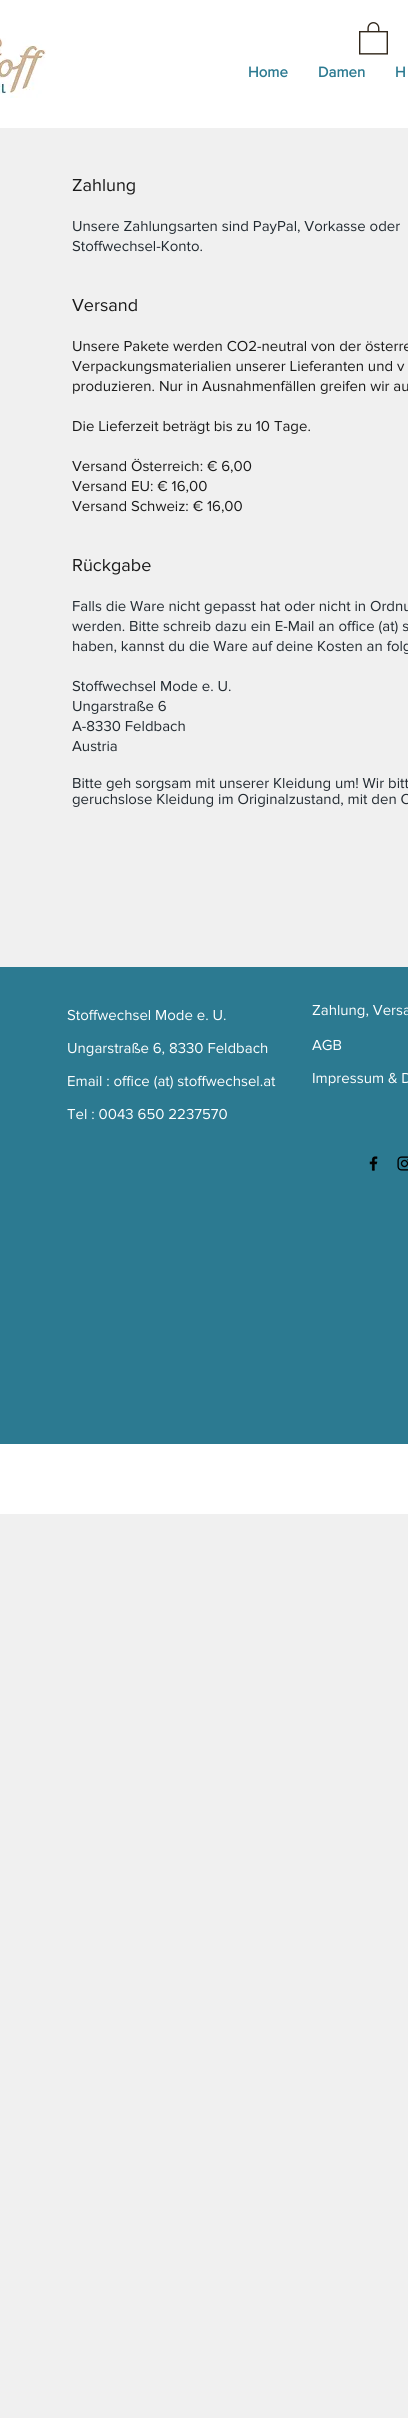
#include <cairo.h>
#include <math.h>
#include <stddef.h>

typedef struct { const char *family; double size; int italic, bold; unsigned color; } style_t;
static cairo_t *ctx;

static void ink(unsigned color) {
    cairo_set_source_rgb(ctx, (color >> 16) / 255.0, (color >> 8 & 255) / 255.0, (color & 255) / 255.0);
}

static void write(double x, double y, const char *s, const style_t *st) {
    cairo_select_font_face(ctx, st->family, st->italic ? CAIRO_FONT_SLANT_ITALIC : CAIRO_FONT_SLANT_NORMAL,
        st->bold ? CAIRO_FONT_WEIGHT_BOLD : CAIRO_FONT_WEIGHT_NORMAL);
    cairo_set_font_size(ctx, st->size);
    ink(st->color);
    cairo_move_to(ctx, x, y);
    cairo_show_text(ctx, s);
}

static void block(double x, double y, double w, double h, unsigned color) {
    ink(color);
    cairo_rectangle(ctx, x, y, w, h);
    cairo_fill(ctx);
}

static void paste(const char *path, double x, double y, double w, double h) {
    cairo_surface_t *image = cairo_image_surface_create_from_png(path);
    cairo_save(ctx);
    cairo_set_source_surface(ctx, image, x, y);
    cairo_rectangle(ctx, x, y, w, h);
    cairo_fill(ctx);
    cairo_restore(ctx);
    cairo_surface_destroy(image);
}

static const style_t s1 = {"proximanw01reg", 15, 0, 1, 0x2c7a91};
static const style_t s2 = {"proximanw01reg", 18, 0, 0, 0x1a1a1a};
static const style_t s3 = {"proximanw01reg", 15, 0, 0, 0x222a31};
static const style_t s4 = {"proximanw01reg", 15, 0, 0, 0x1a1a1a};
static const style_t s5 = {"proximanw01reg", 15, 0, 0, 0xffffff};

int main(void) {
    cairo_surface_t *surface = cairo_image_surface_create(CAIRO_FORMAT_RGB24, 408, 2418);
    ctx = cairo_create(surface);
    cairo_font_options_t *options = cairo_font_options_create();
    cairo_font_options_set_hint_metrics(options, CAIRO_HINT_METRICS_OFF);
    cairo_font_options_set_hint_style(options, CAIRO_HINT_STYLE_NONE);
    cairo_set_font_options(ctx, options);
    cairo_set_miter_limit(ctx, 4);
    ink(0xf0f0f0);
    cairo_paint(ctx);
    block(0, 0, 408, 128, 0xffffff);
    paste("pic1.png", 359, 22, 29, 33);
    paste("pic2.png", 0, 38, 46, 60);
    write(248, 77, "Home", &s1);
    write(318, 77, "Damen", &s1);
    write(395, 77, "H", &s1);
    write(72, 191, "Zahlung", &s2);
    write(72, 231, "Unsere Zahlungsarten sind PayPal, Vorkasse oder", &s3);
    write(72, 251, "Stoffwechsel-Konto.", &s3);
    write(72, 311, "Versand", &s2);
    write(72, 351, "Unsere Pakete werden CO2-neutral von der österre", &s4);
    write(72, 371, "Verpackungsmaterialien unserer Lieferanten und v", &s4);
    write(72, 391, "produzieren. Nur in Ausnahmenfällen greifen wir au", &s4);
    write(72, 431, "Die Lieferzeit beträgt bis zu 10 Tage.", &s4);
    write(72, 471, "Versand Österreich: € 6,00", &s4);
    write(72, 491, "Versand EU: € 16,00", &s4);
    write(72, 511, "Versand Schweiz: € 16,00", &s4);
    write(72, 571, "Rückgabe", &s2);
    write(72, 611, "Falls die Ware nicht gepasst hat oder nicht in Ordnu", &s3);
    write(72, 631, "werden. Bitte schreib dazu ein E-Mail an office (at) s", &s3);
    write(72, 651, "haben, kannst du die Ware auf deine Kosten an folg", &s3);
    write(72, 691, "Stoffwechsel Mode e. U.", &s3);
    write(72, 711, "Ungarstraße 6", &s3);
    write(72, 731, "A-8330 Feldbach", &s3);
    write(72, 751, "Austria", &s3);
    write(72, 788, "Bitte geh sorgsam mit unserer Kleidung um! Wir bitt", &s3);
    write(72, 804, "geruchslose Kleidung im Originalzustand, mit den O", &s3);
    block(0, 967, 408, 477, 0x2c7a91);
    write(67, 1020, "Stoffwechsel Mode e. U.", &s5);
    write(67, 1053, "Ungarstraße 6, 8330 Feldbach", &s5);
    write(67, 1086, "Email : office (at) stoffwechsel.at", &s5);
    write(67, 1119, "Tel : 0043 650 2237570", &s5);
    write(312, 1015, "Zahlung, Versa", &s5);
    write(312, 1050, "AGB", &s5);
    write(312, 1083, "Impressum & D", &s5);
    paste("pic3.png", 369, 1156, 9, 15);
    paste("pic4.png", 397, 1156, 11, 15);
    block(0, 1444, 408, 70, 0xffffff);
    cairo_surface_write_to_png(surface, "screenshot.png");
    cairo_font_options_destroy(options);
    cairo_destroy(ctx);
    cairo_surface_destroy(surface);
    return 0;
}
